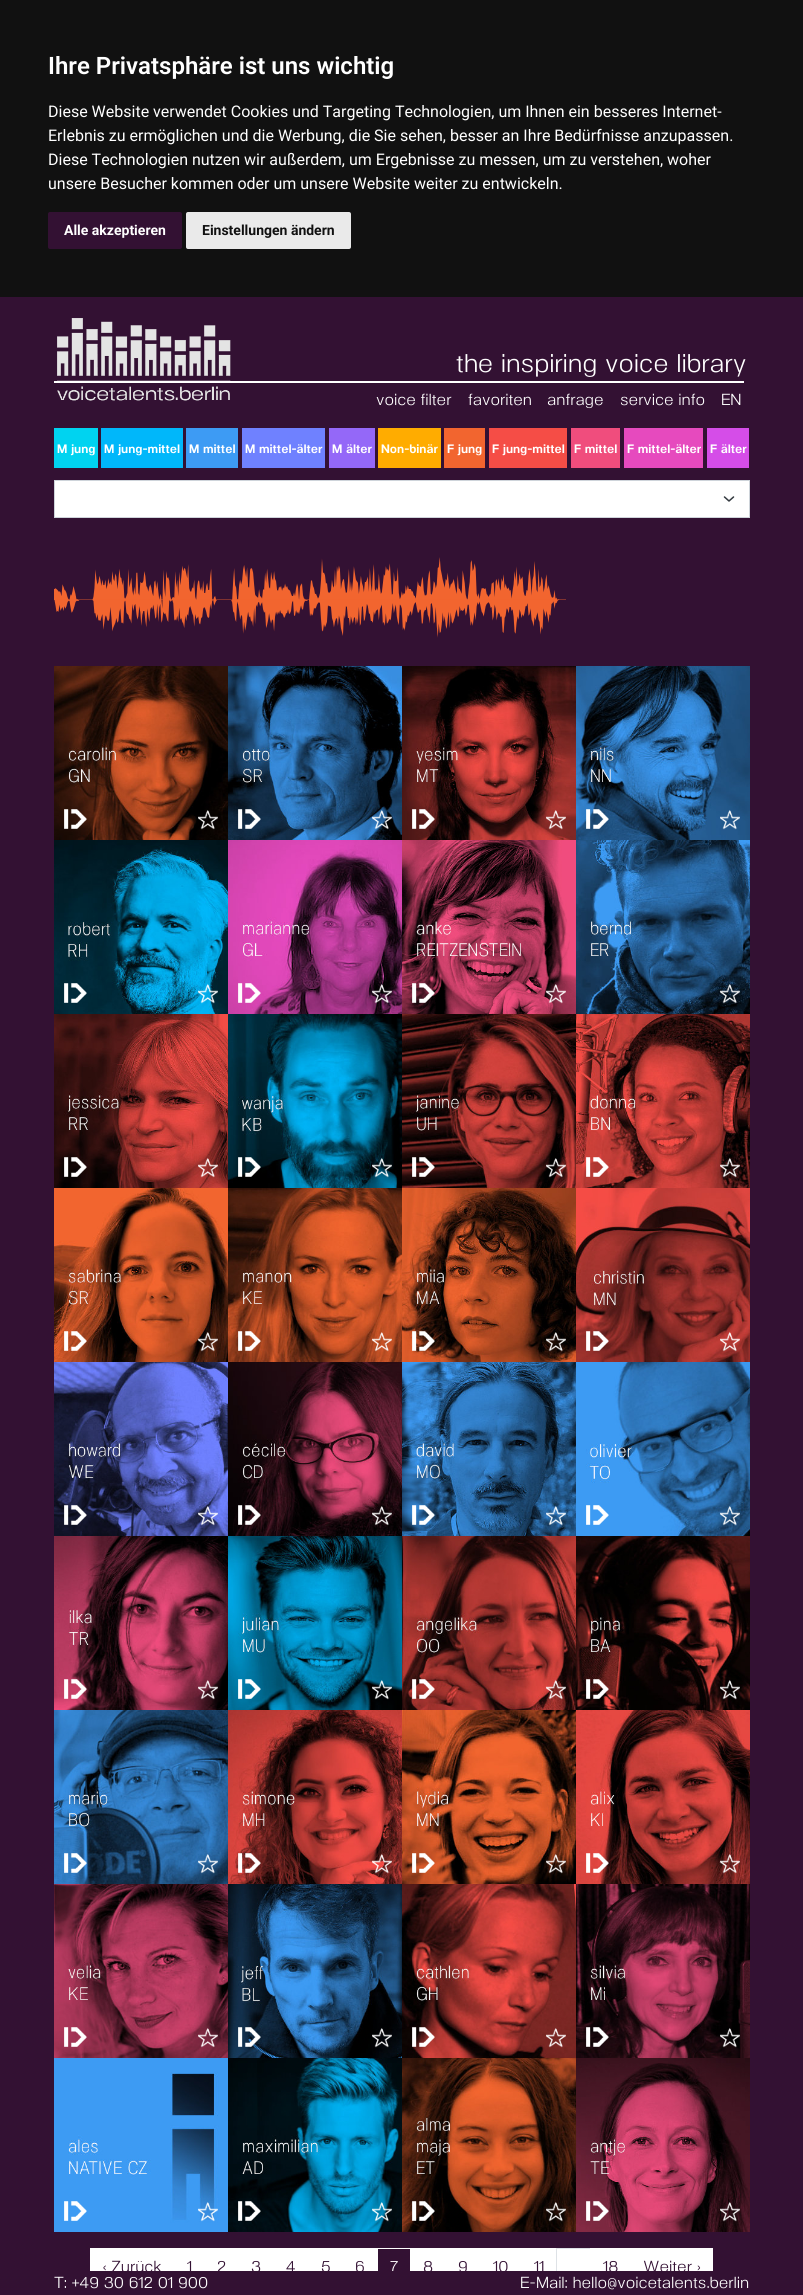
#include <cairo.h>
#include <math.h>
#include <stddef.h>

typedef struct { const char *family; double size; int italic, bold; unsigned color; } style_t;
static cairo_t *ctx;

static void ink(unsigned color) {
    cairo_set_source_rgb(ctx, (color >> 16) / 255.0, (color >> 8 & 255) / 255.0, (color & 255) / 255.0);
}

static void write(double x, double y, const char *s, const style_t *st) {
    cairo_select_font_face(ctx, st->family, st->italic ? CAIRO_FONT_SLANT_ITALIC : CAIRO_FONT_SLANT_NORMAL,
        st->bold ? CAIRO_FONT_WEIGHT_BOLD : CAIRO_FONT_WEIGHT_NORMAL);
    cairo_set_font_size(ctx, st->size);
    ink(st->color);
    cairo_move_to(ctx, x, y);
    cairo_show_text(ctx, s);
}

static void block(double x, double y, double w, double h, unsigned color) {
    ink(color);
    cairo_rectangle(ctx, x, y, w, h);
    cairo_fill(ctx);
}

static void round_path(double x, double y, double w, double h, double r) {
    cairo_new_sub_path(ctx);
    cairo_arc(ctx, x + w - r, y + h - r, r, 0, M_PI / 2);
    cairo_arc(ctx, x + r, y + h - r, r, M_PI / 2, M_PI);
    cairo_arc(ctx, x + r, y + r, r, M_PI, 1.5 * M_PI);
    cairo_arc(ctx, x + w - r, y + r, r, 1.5 * M_PI, 2 * M_PI);
    cairo_close_path(ctx);
}

static void paste(const char *path, double x, double y, double w, double h) {
    cairo_surface_t *image = cairo_image_surface_create_from_png(path);
    cairo_save(ctx);
    cairo_set_source_surface(ctx, image, x, y);
    cairo_rectangle(ctx, x, y, w, h);
    cairo_fill(ctx);
    cairo_restore(ctx);
    cairo_surface_destroy(image);
}

static const style_t s1 = {"Roboto SemiBold", 24, 0, 0, 0xffffff};
static const style_t s2 = {"Roboto", 16, 0, 0, 0xffffff};
static const style_t s3 = {"Roboto", 14, 0, 1, 0xffffff};
static const style_t s4 = {"Roboto", 14, 0, 1, 0x111111};
static const style_t s5 = {"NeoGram", 25.6, 0, 0, 0xffffff};
static const style_t s6 = {"NeoGram", 16, 0, 0, 0xffffff};
static const style_t s7 = {"NeoGram", 12.25, 0, 1, 0xffffff};
static const style_t s8 = {"NeoGram", 16, 0, 0, 0x331133};

int main(void) {
    cairo_surface_t *surface = cairo_image_surface_create(CAIRO_FORMAT_RGB24, 803, 2295);
    ctx = cairo_create(surface);
    cairo_font_options_t *options = cairo_font_options_create();
    cairo_font_options_set_hint_metrics(options, CAIRO_HINT_METRICS_OFF);
    cairo_font_options_set_hint_style(options, CAIRO_HINT_STYLE_NONE);
    cairo_set_font_options(ctx, options);
    cairo_set_miter_limit(ctx, 4);
    ink(0x331133);
    cairo_paint(ctx);
    block(0, 0, 803, 297, 0x111111);
    write(48, 74, "Ihre Privatsphäre ist uns wichtig", &s1);
    write(48, 117, "Diese Website verwendet Cookies und Targeting Technologien, um Ihnen ein besseres Internet-", &s2);
    write(48, 141, "Erlebnis zu ermöglichen und die Werbung, die Sie sehen, besser an Ihre Bedürfnisse anzupassen.", &s2);
    write(48, 165, "Diese Technologien nutzen wir außerdem, um Ergebnisse zu messen, um zu verstehen, woher", &s2);
    write(48, 189, "unsere Besucher kommen oder um unsere Website weiter zu entwickeln.", &s2);
    ink(0x331133);
    round_path(48, 212, 134, 37, 2);
    cairo_fill(ctx);
    write(64, 235, "Alle akzeptieren", &s3);
    ink(0xeaeaea);
    round_path(186, 212, 165, 37, 2);
    cairo_fill(ctx);
    write(202, 235, "Einstellungen ändern", &s4);
    paste("pic1.png", 57, 318, 174, 83);
    write(456, 372, "the inspiring voice library", &s5);
    block(54, 381, 690, 2, 0xffffff);
    write(376, 405, "voice filter", &s6);
    write(468, 405, "favoriten", &s6);
    write(547, 405, "anfrage", &s6);
    write(620, 405, "service info", &s6);
    write(721, 405, "EN", &s6);
    block(54, 428, 44, 40, 0x00d3f0);
    write(57, 453, "M jung", &s7);
    block(101, 428, 82, 40, 0x00b7fa);
    write(104, 453, "M jung-mittel", &s7);
    block(186, 428, 52, 40, 0x3d9bf4);
    write(189, 453, "M mittel", &s7);
    block(242, 428, 83, 40, 0x6f81ff);
    write(245, 453, "M mittel-älter", &s7);
    block(329, 428, 46, 40, 0x9468f8);
    write(332, 453, "M älter", &s7);
    block(378, 428, 63, 40, 0xffac00);
    write(381, 453, "Non-binär", &s7);
    block(444, 428, 41, 40, 0xf2652f);
    write(447, 453, "F jung", &s7);
    block(489, 428, 78, 40, 0xf54d46);
    write(492, 453, "F jung-mittel", &s7);
    block(571, 428, 49, 40, 0xf04d7d);
    write(574, 453, "F mittel", &s7);
    block(624, 428, 79, 40, 0xe64abe);
    write(627, 453, "F mittel-älter", &s7);
    block(707, 428, 42, 40, 0xd54de8);
    write(710, 453, "F älter", &s7);
    block(55, 481, 694, 36, 0xffffff);
    cairo_new_path(ctx);
    cairo_move_to(ctx, 724.5, 497);
    cairo_line_to(ctx, 729, 501);
    cairo_line_to(ctx, 733.5, 497);
    ink(0x343a40);
    cairo_set_line_width(ctx, 1.5);
    cairo_set_line_cap(ctx, CAIRO_LINE_CAP_ROUND);
    cairo_set_line_join(ctx, CAIRO_LINE_JOIN_ROUND);
    cairo_stroke(ctx);
    cairo_rectangle(ctx, 54.5, 480.5, 695, 37);
    ink(0xced4da);
    cairo_set_line_width(ctx, 1);
    cairo_set_line_cap(ctx, CAIRO_LINE_CAP_BUTT);
    cairo_set_line_join(ctx, CAIRO_LINE_JOIN_MITER);
    cairo_stroke(ctx);
    paste("pic2.png", 54, 557, 512, 81);
    paste("pic3.png", 54, 666, 174, 174);
    paste("pic4.png", 64, 809, 23, 20);
    paste("pic5.png", 198, 810, 20, 20);
    paste("pic6.png", 228, 666, 174, 174);
    paste("pic7.png", 238, 809, 23, 20);
    paste("pic8.png", 372, 810, 20, 20);
    paste("pic9.png", 402, 666, 174, 174);
    paste("pic10.png", 412, 809, 23, 20);
    paste("pic11.png", 546, 810, 20, 20);
    paste("pic12.png", 576, 666, 174, 174);
    paste("pic13.png", 586, 809, 23, 20);
    paste("pic14.png", 720, 810, 20, 20);
    paste("pic15.png", 54, 840, 174, 174);
    paste("pic16.png", 64, 983, 23, 20);
    paste("pic17.png", 198, 984, 20, 20);
    paste("pic18.png", 228, 840, 174, 174);
    paste("pic19.png", 238, 983, 23, 20);
    paste("pic20.png", 372, 984, 20, 20);
    paste("pic21.png", 402, 840, 174, 174);
    paste("pic22.png", 412, 983, 23, 20);
    paste("pic23.png", 546, 984, 20, 20);
    paste("pic24.png", 576, 840, 174, 174);
    paste("pic25.png", 720, 984, 20, 20);
    paste("pic26.png", 54, 1014, 174, 174);
    paste("pic27.png", 64, 1157, 23, 20);
    paste("pic28.png", 198, 1158, 20, 20);
    paste("pic29.png", 228, 1014, 174, 174);
    paste("pic30.png", 238, 1157, 23, 20);
    paste("pic31.png", 372, 1158, 20, 20);
    paste("pic32.png", 402, 1014, 174, 174);
    paste("pic33.png", 412, 1157, 23, 20);
    paste("pic34.png", 546, 1158, 20, 20);
    paste("pic35.png", 576, 1014, 174, 174);
    paste("pic36.png", 586, 1157, 23, 20);
    paste("pic37.png", 720, 1158, 20, 20);
    paste("pic38.png", 54, 1188, 174, 174);
    paste("pic39.png", 64, 1331, 23, 20);
    paste("pic40.png", 198, 1332, 20, 20);
    paste("pic41.png", 228, 1188, 174, 174);
    paste("pic42.png", 238, 1331, 23, 20);
    paste("pic43.png", 372, 1332, 20, 20);
    paste("pic44.png", 402, 1188, 174, 174);
    paste("pic45.png", 412, 1331, 23, 20);
    paste("pic46.png", 546, 1332, 20, 20);
    paste("pic47.png", 576, 1188, 174, 174);
    paste("pic48.png", 586, 1331, 23, 20);
    paste("pic49.png", 720, 1332, 20, 20);
    paste("pic50.png", 54, 1362, 174, 174);
    paste("pic51.png", 64, 1505, 23, 20);
    paste("pic52.png", 198, 1506, 20, 20);
    paste("pic53.png", 228, 1362, 174, 174);
    paste("pic54.png", 238, 1505, 23, 20);
    paste("pic55.png", 372, 1506, 20, 20);
    paste("pic56.png", 402, 1362, 174, 174);
    paste("pic57.png", 412, 1505, 23, 20);
    paste("pic58.png", 546, 1506, 20, 20);
    paste("pic59.png", 576, 1362, 174, 174);
    paste("pic60.png", 586, 1505, 23, 20);
    paste("pic61.png", 720, 1506, 20, 20);
    paste("pic62.png", 54, 1536, 174, 174);
    paste("pic63.png", 64, 1679, 23, 20);
    paste("pic64.png", 198, 1680, 20, 20);
    paste("pic65.png", 228, 1536, 174, 174);
    paste("pic66.png", 238, 1679, 23, 20);
    paste("pic67.png", 372, 1680, 20, 20);
    paste("pic68.png", 402, 1536, 174, 174);
    paste("pic69.png", 412, 1679, 23, 20);
    paste("pic70.png", 546, 1680, 20, 20);
    paste("pic71.png", 576, 1536, 174, 174);
    paste("pic72.png", 586, 1679, 23, 20);
    paste("pic73.png", 720, 1680, 20, 20);
    paste("pic74.png", 54, 1710, 174, 174);
    paste("pic75.png", 64, 1853, 23, 20);
    paste("pic76.png", 198, 1854, 20, 20);
    paste("pic77.png", 228, 1710, 174, 174);
    paste("pic78.png", 238, 1853, 23, 20);
    paste("pic79.png", 372, 1854, 20, 20);
    paste("pic80.png", 402, 1710, 174, 174);
    paste("pic81.png", 412, 1853, 23, 20);
    paste("pic82.png", 546, 1854, 20, 20);
    paste("pic83.png", 576, 1710, 174, 174);
    paste("pic84.png", 586, 1853, 23, 20);
    paste("pic85.png", 720, 1854, 20, 20);
    paste("pic86.png", 54, 1884, 174, 174);
    paste("pic87.png", 64, 2027, 23, 20);
    paste("pic88.png", 198, 2028, 20, 20);
    paste("pic89.png", 228, 1884, 174, 174);
    paste("pic90.png", 238, 2027, 23, 20);
    paste("pic91.png", 372, 2028, 20, 20);
    paste("pic92.png", 402, 1884, 174, 174);
    paste("pic93.png", 412, 2027, 23, 20);
    paste("pic94.png", 546, 2028, 20, 20);
    paste("pic95.png", 576, 1884, 174, 174);
    paste("pic96.png", 586, 2027, 23, 20);
    paste("pic97.png", 720, 2028, 20, 20);
    paste("pic98.png", 54, 2058, 174, 174);
    paste("pic60.png", 64, 2201, 23, 20);
    paste("pic99.png", 198, 2202, 20, 20);
    paste("pic100.png", 228, 2058, 174, 174);
    paste("pic101.png", 238, 2201, 23, 20);
    paste("pic102.png", 372, 2202, 20, 20);
    paste("pic103.png", 402, 2058, 174, 174);
    paste("pic104.png", 412, 2201, 23, 20);
    paste("pic105.png", 546, 2202, 20, 20);
    paste("pic106.png", 576, 2058, 174, 174);
    paste("pic107.png", 586, 2201, 23, 20);
    paste("pic108.png", 720, 2202, 20, 20);
    block(90, 2248, 287, 23, 0xffffff);
    write(103, 2272, "‹ Zurück", &s8);
    write(187, 2272, "1", &s8);
    write(217, 2272, "2", &s8);
    write(251, 2272, "3", &s8);
    write(286, 2272, "4", &s8);
    write(321, 2272, "5", &s8);
    write(355, 2272, "6", &s8);
    cairo_rectangle(ctx, 377.5, 2248.5, 33, 37);
    ink(0xffffff);
    cairo_stroke(ctx);
    write(390, 2272, "7", &s6);
    block(411, 2248, 145, 23, 0xffffff);
    write(423, 2272, "8", &s8);
    write(458, 2272, "9", &s8);
    write(493, 2272, "10", &s8);
    write(534, 2272, "11", &s8);
    block(557, 2249, 33, 22, 0xffffff);
    cairo_rectangle(ctx, 556.5, 2248.5, 34, 37);
    ink(0xdee2e6);
    cairo_stroke(ctx);
    block(590, 2248, 123, 23, 0xffffff);
    write(603, 2272, "18", &s8);
    write(643, 2272, "Weiter ›", &s8);
    block(377, 2271, 214, 15, 0x331133);
    write(54, 2288, "T: +49 30 612 01 900", &s6);
    write(520, 2288, "E-Mail: hello@voicetalents.berlin", &s6);
    cairo_surface_write_to_png(surface, "screenshot.png");
    cairo_font_options_destroy(options);
    cairo_destroy(ctx);
    cairo_surface_destroy(surface);
    return 0;
}
